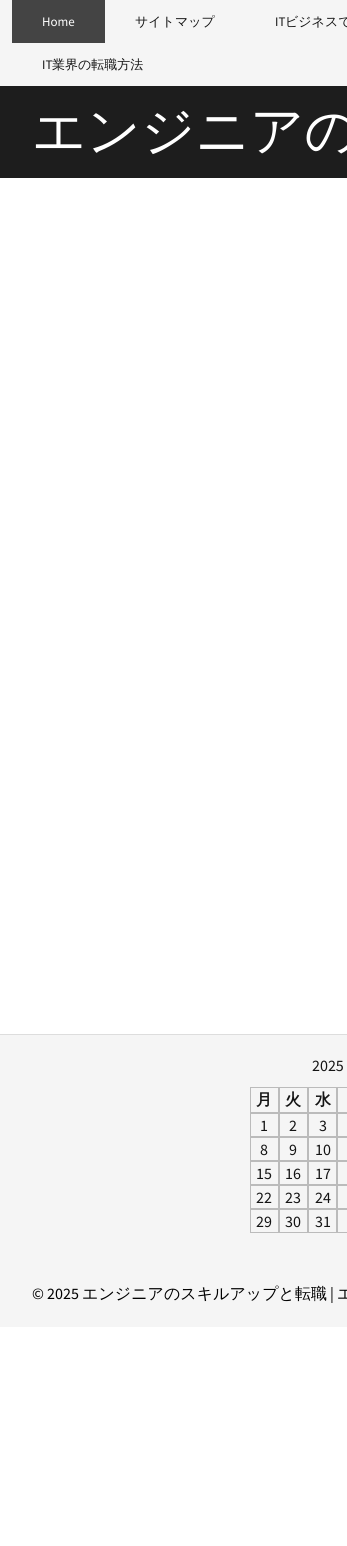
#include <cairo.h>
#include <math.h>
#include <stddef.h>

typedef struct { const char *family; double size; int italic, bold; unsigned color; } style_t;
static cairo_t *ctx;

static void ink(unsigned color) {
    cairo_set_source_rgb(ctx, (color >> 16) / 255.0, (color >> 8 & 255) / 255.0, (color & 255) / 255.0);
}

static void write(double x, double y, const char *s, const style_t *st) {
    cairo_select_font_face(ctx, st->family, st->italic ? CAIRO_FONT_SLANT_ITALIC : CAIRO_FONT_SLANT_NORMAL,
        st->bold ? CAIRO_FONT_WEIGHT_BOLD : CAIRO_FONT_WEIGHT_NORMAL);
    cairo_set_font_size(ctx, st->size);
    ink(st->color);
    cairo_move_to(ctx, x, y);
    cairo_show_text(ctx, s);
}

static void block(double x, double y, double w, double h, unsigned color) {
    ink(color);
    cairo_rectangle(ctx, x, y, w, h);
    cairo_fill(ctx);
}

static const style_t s1 = {"Source Sans Pro", 13, 0, 0, 0xffffff};
static const style_t s2 = {"WenQuanYi Zen Hei Medium", 13, 0, 0, 0x141414};
static const style_t s3 = {"Source Sans Pro", 13, 0, 0, 0x141414};
static const style_t s4 = {"WenQuanYi Zen Hei Medium", 53.25, 0, 0, 0xffffff};
static const style_t s5 = {"Source Sans Pro", 16, 0, 0, 0x141414};
static const style_t s6 = {"WenQuanYi Zen Hei", 16, 0, 1, 0x141414};
static const style_t s7 = {"Source Sans Pro", 16, 0, 0, 0x000000};
static const style_t s8 = {"WenQuanYi Zen Hei Medium", 16, 0, 0, 0x000000};

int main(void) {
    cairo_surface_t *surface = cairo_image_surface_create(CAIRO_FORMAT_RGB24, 347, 1546);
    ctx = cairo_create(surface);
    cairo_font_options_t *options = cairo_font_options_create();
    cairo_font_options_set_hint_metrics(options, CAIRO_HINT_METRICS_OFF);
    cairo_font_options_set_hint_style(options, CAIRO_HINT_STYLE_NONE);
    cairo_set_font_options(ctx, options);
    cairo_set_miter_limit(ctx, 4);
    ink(0xffffff);
    cairo_paint(ctx);
    block(0, 0, 347, 86, 0xf5f5f5);
    block(12, 0, 93, 43, 0x444444);
    write(42, 26, "Home", &s1);
    write(135, 26, "サイトマップ", &s2);
    write(275, 26, "IT", &s3);
    write(285, 26, "ビジネスで", &s2);
    write(42, 69, "IT", &s3);
    write(52, 69, "業界の転職方法", &s2);
    block(0, 86, 347, 92, 0x1d1d1d);
    write(32, 149, "エンジニアの", &s4);
    block(0, 1035, 347, 292, 0xf5f5f5);
    block(0, 1034, 347, 1, 0xdddddd);
    write(312, 1071, "2025", &s5);
    cairo_rectangle(ctx, 250.5, 1087.5, 28, 25);
    ink(0xbbbbbb);
    cairo_set_line_width(ctx, 1);
    cairo_stroke(ctx);
    write(256, 1105, "月", &s6);
    cairo_rectangle(ctx, 279.5, 1087.5, 28, 25);
    ink(0xbbbbbb);
    cairo_stroke(ctx);
    write(285, 1105, "火", &s6);
    cairo_rectangle(ctx, 308.5, 1087.5, 28, 25);
    ink(0xbbbbbb);
    cairo_stroke(ctx);
    write(315, 1105, "水", &s6);
    cairo_rectangle(ctx, 337.5, 1087.5, 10, 25);
    ink(0xbbbbbb);
    cairo_stroke(ctx);
    cairo_rectangle(ctx, 250.5, 1113.5, 28, 23);
    cairo_stroke(ctx);
    write(260, 1131, "1", &s5);
    cairo_rectangle(ctx, 279.5, 1113.5, 28, 23);
    ink(0xbbbbbb);
    cairo_stroke(ctx);
    write(289, 1131, "2", &s5);
    cairo_rectangle(ctx, 308.5, 1113.5, 28, 23);
    ink(0xbbbbbb);
    cairo_stroke(ctx);
    write(319, 1131, "3", &s5);
    cairo_rectangle(ctx, 337.5, 1113.5, 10, 23);
    ink(0xbbbbbb);
    cairo_stroke(ctx);
    cairo_rectangle(ctx, 250.5, 1137.5, 28, 23);
    cairo_stroke(ctx);
    write(260, 1155, "8", &s5);
    cairo_rectangle(ctx, 279.5, 1137.5, 28, 23);
    ink(0xbbbbbb);
    cairo_stroke(ctx);
    write(289, 1155, "9", &s5);
    cairo_rectangle(ctx, 308.5, 1137.5, 28, 23);
    ink(0xbbbbbb);
    cairo_stroke(ctx);
    write(315, 1155, "10", &s5);
    cairo_rectangle(ctx, 337.5, 1137.5, 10, 23);
    ink(0xbbbbbb);
    cairo_stroke(ctx);
    cairo_rectangle(ctx, 250.5, 1161.5, 28, 23);
    cairo_stroke(ctx);
    write(256, 1179, "15", &s5);
    cairo_rectangle(ctx, 279.5, 1161.5, 28, 23);
    ink(0xbbbbbb);
    cairo_stroke(ctx);
    write(285, 1179, "16", &s5);
    cairo_rectangle(ctx, 308.5, 1161.5, 28, 23);
    ink(0xbbbbbb);
    cairo_stroke(ctx);
    write(315, 1179, "17", &s5);
    cairo_rectangle(ctx, 337.5, 1161.5, 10, 23);
    ink(0xbbbbbb);
    cairo_stroke(ctx);
    cairo_rectangle(ctx, 250.5, 1185.5, 28, 23);
    cairo_stroke(ctx);
    write(256, 1203, "22", &s5);
    cairo_rectangle(ctx, 279.5, 1185.5, 28, 23);
    ink(0xbbbbbb);
    cairo_stroke(ctx);
    write(285, 1203, "23", &s5);
    cairo_rectangle(ctx, 308.5, 1185.5, 28, 23);
    ink(0xbbbbbb);
    cairo_stroke(ctx);
    write(315, 1203, "24", &s5);
    cairo_rectangle(ctx, 337.5, 1185.5, 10, 23);
    ink(0xbbbbbb);
    cairo_stroke(ctx);
    cairo_rectangle(ctx, 250.5, 1209.5, 28, 23);
    cairo_stroke(ctx);
    write(256, 1227, "29", &s5);
    cairo_rectangle(ctx, 279.5, 1209.5, 28, 23);
    ink(0xbbbbbb);
    cairo_stroke(ctx);
    write(285, 1227, "30", &s5);
    cairo_rectangle(ctx, 308.5, 1209.5, 28, 23);
    ink(0xbbbbbb);
    cairo_stroke(ctx);
    write(315, 1227, "31", &s5);
    cairo_rectangle(ctx, 337.5, 1209.5, 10, 23);
    ink(0xbbbbbb);
    cairo_stroke(ctx);
    write(32, 1299, "© 2025", &s7);
    write(82, 1299, "エンジニアのスキルアップと転職", &s8);
    write(330, 1299, "|", &s7);
    write(337, 1299, "エ", &s8);
    cairo_surface_write_to_png(surface, "screenshot.png");
    cairo_font_options_destroy(options);
    cairo_destroy(ctx);
    cairo_surface_destroy(surface);
    return 0;
}
